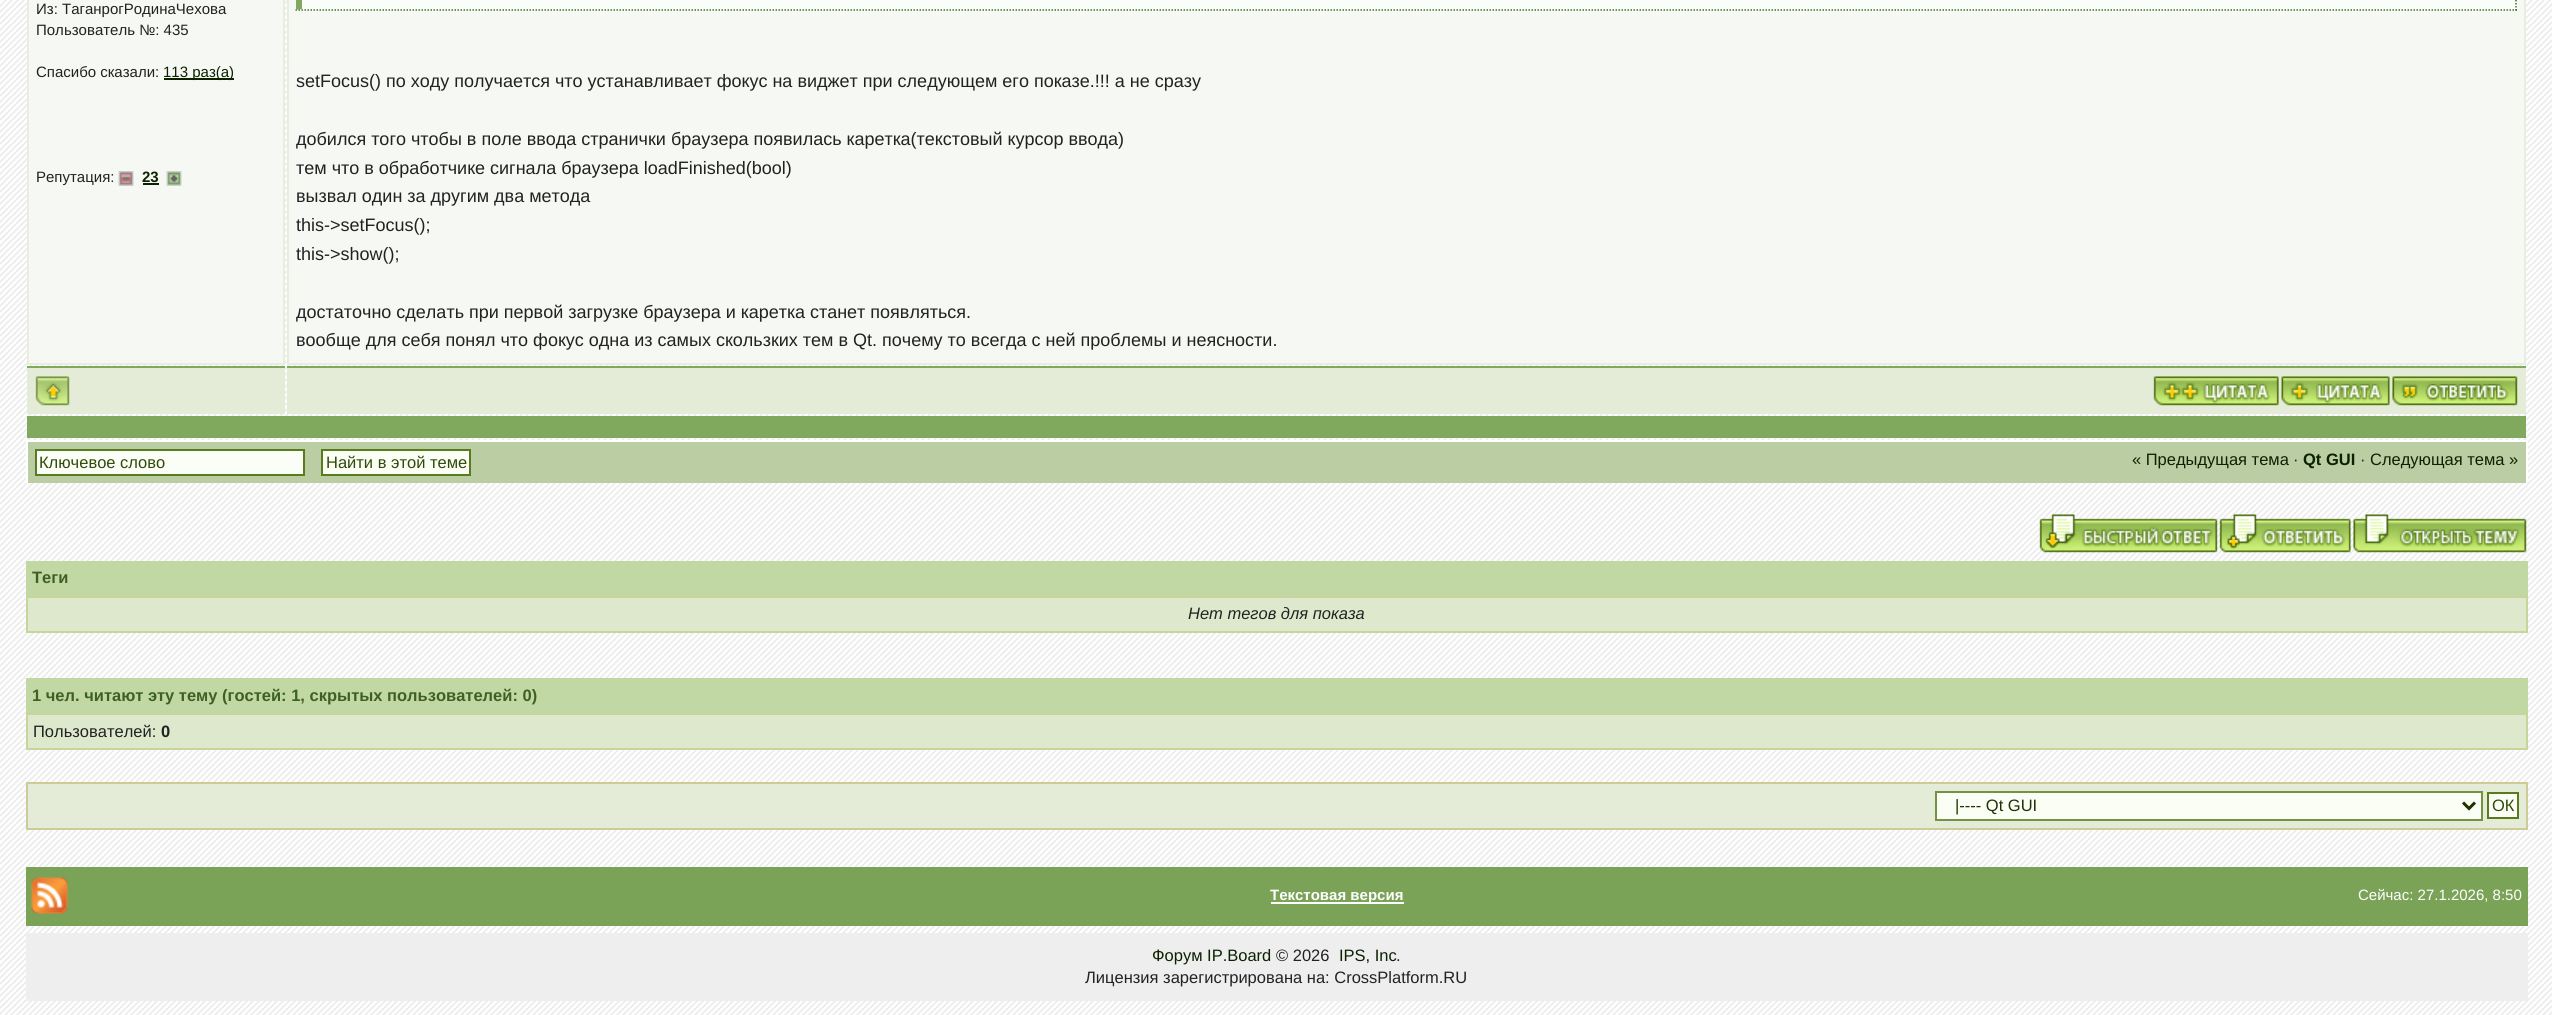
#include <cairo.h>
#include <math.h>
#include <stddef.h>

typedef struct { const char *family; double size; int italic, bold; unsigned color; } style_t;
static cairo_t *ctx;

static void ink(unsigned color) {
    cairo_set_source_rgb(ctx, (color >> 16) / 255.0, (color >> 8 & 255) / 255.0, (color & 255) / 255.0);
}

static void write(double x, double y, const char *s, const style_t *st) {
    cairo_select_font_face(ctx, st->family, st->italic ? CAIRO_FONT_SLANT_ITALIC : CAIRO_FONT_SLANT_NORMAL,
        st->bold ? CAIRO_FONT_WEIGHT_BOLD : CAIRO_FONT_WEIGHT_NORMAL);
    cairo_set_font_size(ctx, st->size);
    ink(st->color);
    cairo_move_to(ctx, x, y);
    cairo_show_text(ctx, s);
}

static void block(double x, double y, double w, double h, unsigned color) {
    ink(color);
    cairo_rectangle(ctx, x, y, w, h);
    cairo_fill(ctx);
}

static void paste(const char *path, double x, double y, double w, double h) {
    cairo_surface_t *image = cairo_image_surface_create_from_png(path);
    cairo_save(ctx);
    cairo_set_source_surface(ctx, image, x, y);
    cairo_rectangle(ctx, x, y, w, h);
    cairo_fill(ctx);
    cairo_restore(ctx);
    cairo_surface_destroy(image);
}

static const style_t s1 = {"Liberation Sans", 15, 0, 0, 0x222222};
static const style_t s2 = {"Liberation Sans", 15, 0, 0, 0x0b2200};
static const style_t s3 = {"Liberation Sans", 15, 0, 1, 0x0b2200};
static const style_t s4 = {"Liberation Sans", 18, 0, 0, 0x222222};
static const style_t s5 = {"Liberation Sans", 16.5, 0, 0, 0x304a07};
static const style_t s6 = {"Liberation Sans", 16.5, 0, 0, 0x0b2200};
static const style_t s7 = {"Liberation Sans", 16.5, 0, 0, 0x222222};
static const style_t s8 = {"Liberation Sans", 16.5, 0, 1, 0x0b2200};
static const style_t s9 = {"Liberation Sans", 16.5, 0, 1, 0x3e6123};
static const style_t s10 = {"Liberation Sans", 16.5, 1, 0, 0x222222};
static const style_t s11 = {"Liberation Sans", 16.5, 0, 1, 0x222222};
static const style_t s12 = {"Liberation Sans", 16.5, 0, 0, 0x203104};
static const style_t s13 = {"Liberation Sans", 15, 0, 1, 0xffffff};
static const style_t s14 = {"Liberation Sans", 15, 0, 0, 0xffffff};

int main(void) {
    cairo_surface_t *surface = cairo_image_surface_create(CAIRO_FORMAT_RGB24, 2552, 1015);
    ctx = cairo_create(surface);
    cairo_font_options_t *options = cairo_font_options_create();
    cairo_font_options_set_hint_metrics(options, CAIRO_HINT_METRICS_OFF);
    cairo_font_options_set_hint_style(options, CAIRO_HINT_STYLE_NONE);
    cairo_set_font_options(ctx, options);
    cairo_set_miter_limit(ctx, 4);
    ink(0xffffff);
    cairo_paint(ctx);
    paste("pic1.png", 0, 0, 2552, 1015);
    ink(0xf6f8f4);
    cairo_rectangle(ctx, 28, -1, 256, 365);
    cairo_fill_preserve(ctx);
    ink(0xe8ede0);
    cairo_stroke(ctx);
    write(36, 14, "Из: ТаганрогРодинаЧехова", &s1);
    write(36, 35, "Пользователь №: 435", &s1);
    write(36, 77, "Спасибо сказали:", &s1);
    block(164, 78, 70, 2, 0x0b2200);
    write(163, 77, "113 раз(а)", &s2);
    write(36, 182, "Репутация:", &s1);
    paste("pic2.png", 118, 171, 16, 15);
    write(142, 182, "23", &s3);
    block(143, 183, 16, 2, 0x0b2200);
    paste("pic3.png", 166, 171, 16, 15);
    ink(0xf6f8f4);
    cairo_rectangle(ctx, 288, -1, 2237, 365);
    cairo_fill_preserve(ctx);
    ink(0xe8ede0);
    cairo_stroke(ctx);
    block(296, 0, 2221, 11, 0xfafefa);
    cairo_new_path(ctx);
    cairo_move_to(ctx, 2516, -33);
    cairo_line_to(ctx, 2516, 10.5);
    ink(0x44672a);
    cairo_set_line_width(ctx, 1.5);
    cairo_set_dash(ctx, (double[]){1.5, 1.5}, 2, 0);
    cairo_stroke(ctx);
    cairo_new_path(ctx);
    cairo_move_to(ctx, 295.5, 10);
    cairo_line_to(ctx, 2517, 10);
    cairo_stroke(ctx);
    ink(0x81a95e);
    cairo_new_path(ctx);
    cairo_move_to(ctx, 296, 10);
    cairo_line_to(ctx, 296, -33);
    cairo_line_to(ctx, 302, -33);
    cairo_line_to(ctx, 302, 9);
    cairo_close_path(ctx);
    cairo_fill(ctx);
    write(296, 87, "setFocus() по ходу получается что устанавливает фокус на виджет при следующем его показе.!!! а не сразу", &s4);
    write(296, 145, "добился того чтобы в поле ввода странички браузера появилась каретка(текстовый курсор ввода)", &s4);
    write(296, 174, "тем что в обработчике сигнала браузера loadFinished(bool)", &s4);
    write(296, 202, "вызвал один за другим два метода", &s4);
    write(296, 231, "this->setFocus();", &s4);
    write(296, 260, "this->show();", &s4);
    write(296, 318, "достаточно сделать при первой загрузке браузера и каретка станет появляться.", &s4);
    write(296, 346, "вообще для себя понял что фокус одна из самых скользких тем в Qt. почему то всегда с ней проблемы и неясности.", &s4);
    block(27, 368, 258, 46, 0xe4ebd7);
    block(27, 366, 258, 2, 0x81a95e);
    paste("pic4.png", 35, 376, 35, 30);
    block(287, 368, 2239, 46, 0xe4ebd7);
    block(287, 366, 2239, 2, 0x81a95e);
    paste("pic5.png", 2153, 376, 126, 30);
    paste("pic6.png", 2281, 376, 109, 30);
    paste("pic7.png", 2392, 376, 126, 30);
    block(27, 416, 2499, 22, 0x81a95e);
    block(28, 442, 2498, 41, 0xbbcda2);
    block(26, 440, 2502, 2, 0xffffff);
    block(2526, 440, 2, 43, 0xffffff);
    block(26, 440, 2, 43, 0xffffff);
    ink(0xfbfdf7);
    cairo_rectangle(ctx, 36, 450, 268, 25);
    cairo_fill_preserve(ctx);
    ink(0x587c1d);
    cairo_set_line_width(ctx, 2);
    cairo_set_dash(ctx, NULL, 0, 0);
    cairo_stroke(ctx);
    write(39, 468, "Ключевое слово", &s5);
    ink(0xfbfef5);
    cairo_rectangle(ctx, 322, 450, 148, 25);
    cairo_fill_preserve(ctx);
    ink(0x587c1d);
    cairo_stroke(ctx);
    write(326, 468, "Найти в этой теме", &s5);
    write(2132, 465, "« Предыдущая тема", &s6);
    write(2293, 465, "·", &s7);
    write(2303, 465, "Qt GUI", &s8);
    write(2360, 465, "·", &s7);
    write(2370, 465, "Следующая тема »", &s6);
    paste("pic8.png", 2039, 514, 179, 39);
    paste("pic9.png", 2219, 513, 132, 40);
    paste("pic10.png", 2353, 514, 174, 39);
    block(26, 561, 2502, 35, 0xc1d8a5);
    write(32, 583, "Теги", &s9);
    ink(0xdee8cd);
    cairo_rectangle(ctx, 27, 597, 2500, 35);
    cairo_fill_preserve(ctx);
    ink(0xc7d59d);
    cairo_stroke(ctx);
    write(1188, 619, "Нет тегов для показа", &s10);
    block(26, 678, 2502, 35, 0xc1d8a5);
    write(32, 701, "1 чел. читают эту тему (гостей: 1, скрытых пользователей: 0)", &s9);
    ink(0xdee8cd);
    cairo_rectangle(ctx, 27, 714, 2500, 35);
    cairo_fill_preserve(ctx);
    ink(0xc7d59d);
    cairo_stroke(ctx);
    write(33, 737, "Пользователей:", &s7);
    write(161, 737, "0", &s11);
    ink(0xe4ebd7);
    cairo_rectangle(ctx, 27, 783, 2500, 46);
    cairo_fill_preserve(ctx);
    ink(0xcccc99);
    cairo_stroke(ctx);
    ink(0xfbfef5);
    cairo_rectangle(ctx, 1936, 792, 546, 28);
    cairo_fill_preserve(ctx);
    ink(0x749244);
    cairo_stroke(ctx);
    cairo_new_path(ctx);
    cairo_move_to(ctx, 2463, 802.5);
    cairo_line_to(ctx, 2469, 808.5);
    cairo_line_to(ctx, 2475, 802.5);
    ink(0x203104);
    cairo_set_line_width(ctx, 3);
    cairo_stroke(ctx);
    write(1955, 811, "|---- Qt GUI", &s12);
    ink(0xfbfef5);
    cairo_rectangle(ctx, 2488, 793, 30, 25);
    cairo_fill_preserve(ctx);
    ink(0x587c1d);
    cairo_set_line_width(ctx, 2);
    cairo_stroke(ctx);
    write(2492, 811, "ОК", &s5);
    block(26, 867, 2502, 59, 0x7aa357);
    paste("pic11.png", 31, 877, 37, 37);
    block(1271, 902, 133, 2, 0xffffff);
    write(1270, 900, "Текстовая версия", &s13);
    write(2358, 900, "Сейчас: 27.1.2026, 8:50", &s14);
    block(26, 933, 2502, 68, 0xeeeeee);
    write(1152, 961, "Форум IP.Board", &s6);
    write(1276, 961, "© 2026", &s7);
    write(1339, 961, "IPS, Inc", &s6);
    write(1396, 961, ".", &s7);
    write(1085, 983, "Лицензия зарегистрирована на: CrossPlatform.RU", &s7);
    cairo_surface_write_to_png(surface, "screenshot.png");
    cairo_font_options_destroy(options);
    cairo_destroy(ctx);
    cairo_surface_destroy(surface);
    return 0;
}
